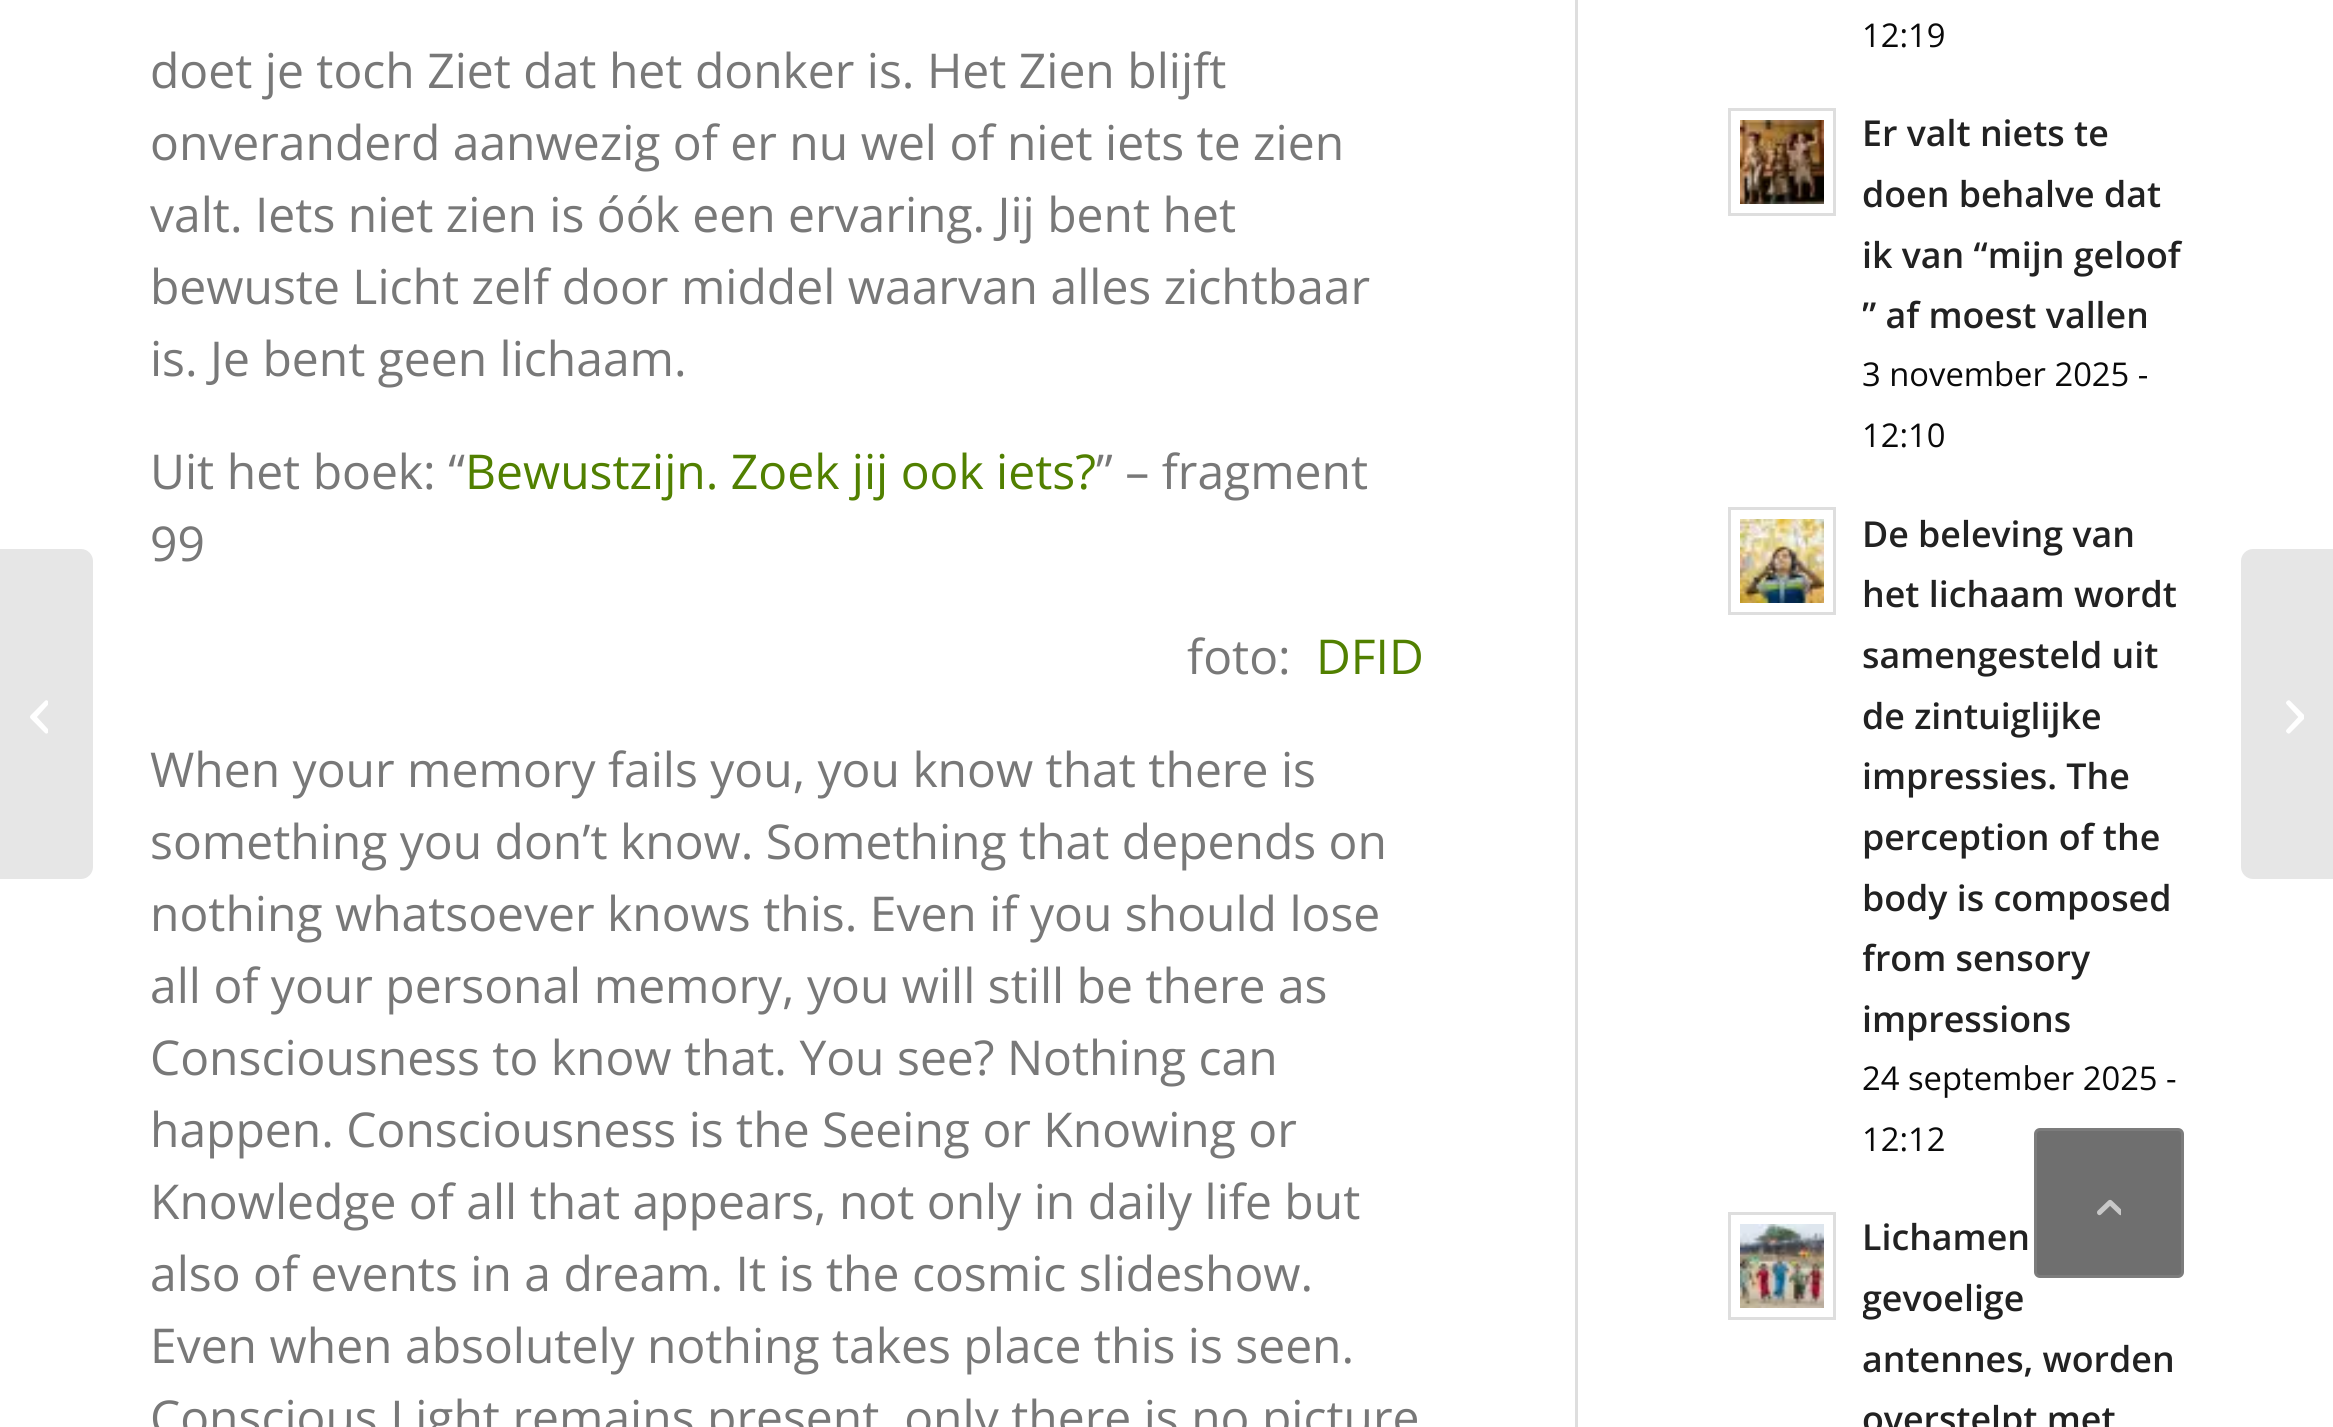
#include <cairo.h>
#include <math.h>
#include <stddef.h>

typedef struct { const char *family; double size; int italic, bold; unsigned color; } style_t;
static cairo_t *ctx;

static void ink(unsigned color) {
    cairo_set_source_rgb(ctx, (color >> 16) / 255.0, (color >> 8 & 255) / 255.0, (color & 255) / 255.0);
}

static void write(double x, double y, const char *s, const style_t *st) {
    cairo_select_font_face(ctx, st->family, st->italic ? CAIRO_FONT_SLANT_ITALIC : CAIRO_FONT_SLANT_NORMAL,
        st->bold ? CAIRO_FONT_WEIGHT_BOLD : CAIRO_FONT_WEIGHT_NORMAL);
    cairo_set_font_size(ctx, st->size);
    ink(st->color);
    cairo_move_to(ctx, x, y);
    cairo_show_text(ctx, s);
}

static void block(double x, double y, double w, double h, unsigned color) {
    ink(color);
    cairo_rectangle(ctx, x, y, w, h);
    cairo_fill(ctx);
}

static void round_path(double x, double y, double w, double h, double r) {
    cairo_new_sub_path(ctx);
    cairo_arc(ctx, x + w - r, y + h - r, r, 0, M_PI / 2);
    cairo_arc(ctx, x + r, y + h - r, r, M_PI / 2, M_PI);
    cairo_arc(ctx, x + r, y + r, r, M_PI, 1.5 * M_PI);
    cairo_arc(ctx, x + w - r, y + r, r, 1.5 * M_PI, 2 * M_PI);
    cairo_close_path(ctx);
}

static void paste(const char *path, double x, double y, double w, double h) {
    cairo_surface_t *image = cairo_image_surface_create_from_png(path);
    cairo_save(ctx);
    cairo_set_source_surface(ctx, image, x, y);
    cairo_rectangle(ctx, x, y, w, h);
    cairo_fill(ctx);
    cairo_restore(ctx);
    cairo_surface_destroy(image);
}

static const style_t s1 = {"Open Sans", 48, 0, 0, 0x787878};
static const style_t s2 = {"Open Sans", 48, 0, 0, 0x518000};
static const style_t s3 = {"Open Sans", 32.75, 0, 0, 0x0a0a0a};
static const style_t s4 = {"Open Sans SemiBold", 35.75, 0, 0, 0x222222};

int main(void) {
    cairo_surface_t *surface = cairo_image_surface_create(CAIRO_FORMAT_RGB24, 2333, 1427);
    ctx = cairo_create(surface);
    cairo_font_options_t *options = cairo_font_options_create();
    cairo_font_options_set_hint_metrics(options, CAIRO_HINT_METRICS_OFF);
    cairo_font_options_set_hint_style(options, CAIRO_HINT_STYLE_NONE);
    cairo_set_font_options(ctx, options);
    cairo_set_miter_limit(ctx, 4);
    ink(0xffffff);
    cairo_paint(ctx);
    ink(0xe6e6e6);
    cairo_new_path(ctx);
    cairo_move_to(ctx, 0, 549);
    cairo_line_to(ctx, 81, 549);
    cairo_curve_to(ctx, 87.5, 549, 93, 554.5, 93, 561);
    cairo_line_to(ctx, 93, 867);
    cairo_curve_to(ctx, 93, 873.5, 87.5, 879, 81, 879);
    cairo_line_to(ctx, 0, 879);
    cairo_close_path(ctx);
    cairo_fill(ctx);
    paste("pic1.png", 30, 700, 18, 34);
    block(1575, 0, 3, 1427, 0xdedede);
    write(150, 88, "doet je toch Ziet dat het donker is. Het Zien blijft", &s1);
    write(150, 160, "onveranderd aanwezig of er nu wel of niet iets te zien", &s1);
    write(150, 232, "valt. Iets niet zien is óók een ervaring. Jij bent het", &s1);
    write(150, 304, "bewuste Licht zelf door middel waarvan alles zichtbaar", &s1);
    write(150, 376, "is. Je bent geen lichaam.", &s1);
    write(150, 489, "Uit het boek: “", &s1);
    write(465, 489, "Bewustzijn. Zoek jij ook iets?", &s2);
    write(1096, 489, "” – fragment", &s1);
    write(150, 561, "99", &s1);
    write(1187, 674, "foto:", &s1);
    write(1316, 674, "DFID", &s2);
    write(150, 787, "When your memory fails you, you know that there is", &s1);
    write(150, 859, "something you don’t know. Something that depends on", &s1);
    write(150, 931, "nothing whatsoever knows this. Even if you should lose", &s1);
    write(150, 1003, "all of your personal memory, you will still be there as", &s1);
    write(150, 1075, "Consciousness to know that. You see? Nothing can", &s1);
    write(150, 1147, "happen. Consciousness is the Seeing or Knowing or", &s1);
    write(150, 1219, "Knowledge of all that appears, not only in daily life but", &s1);
    write(150, 1291, "also of events in a dream. It is the cosmic slideshow.", &s1);
    write(150, 1363, "Even when absolutely nothing takes place this is seen.", &s1);
    write(150, 1435, "Conscious Light remains present, only there is no picture", &s1);
    write(1862, 47, "12:19", &s3);
    cairo_rectangle(ctx, 1729.5, 109.5, 105, 105);
    ink(0xdedede);
    cairo_set_line_width(ctx, 3);
    cairo_stroke(ctx);
    paste("pic2.png", 1740, 120, 84, 84);
    write(1862, 146, "Er valt niets te", &s4);
    write(1862, 207, "doen behalve dat", &s4);
    write(1862, 268, "ik van “mijn geloof", &s4);
    cairo_save(ctx);
    cairo_rectangle(ctx, 1863, 102, 321, 363);
    cairo_clip(ctx);
    write(1862, 328, "” af moest vallen", &s4);
    cairo_restore(ctx);
    write(1862, 386, "3 november 2025 -", &s3);
    write(1862, 447, "12:10", &s3);
    cairo_rectangle(ctx, 1729.5, 508.5, 105, 105);
    ink(0xdedede);
    cairo_stroke(ctx);
    paste("pic3.png", 1740, 519, 84, 84);
    write(1862, 547, "De beleving van", &s4);
    write(1862, 607, "het lichaam wordt", &s4);
    write(1862, 668, "samengesteld uit", &s4);
    write(1862, 729, "de zintuiglijke", &s4);
    write(1862, 789, "impressies. The", &s4);
    write(1862, 850, "perception of the", &s4);
    write(1862, 911, "body is composed", &s4);
    cairo_save(ctx);
    cairo_rectangle(ctx, 1863, 501, 321, 669);
    cairo_clip(ctx);
    write(1862, 971, "from sensory", &s4);
    cairo_restore(ctx);
    write(1862, 1032, "impressions", &s4);
    write(1862, 1090, "24 september 2025 -", &s3);
    write(1862, 1151, "12:12", &s3);
    cairo_rectangle(ctx, 1729.5, 1213.5, 105, 105);
    ink(0xdedede);
    cairo_stroke(ctx);
    paste("pic4.png", 1740, 1224, 84, 84);
    write(1862, 1250, "Lichamen", &s4);
    cairo_save(ctx);
    cairo_rectangle(ctx, 1863, 1206, 321, 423);
    cairo_clip(ctx);
    write(1862, 1311, "gevoelige", &s4);
    cairo_restore(ctx);
    write(1862, 1372, "antennes, worden", &s4);
    write(1862, 1432, "overstelpt met", &s4);
    ink(0xe6e6e6);
    cairo_new_path(ctx);
    cairo_move_to(ctx, 2253, 549);
    cairo_line_to(ctx, 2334, 549);
    cairo_line_to(ctx, 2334, 879);
    cairo_line_to(ctx, 2253, 879);
    cairo_curve_to(ctx, 2246.5, 879, 2241, 873.5, 2241, 867);
    cairo_line_to(ctx, 2241, 561);
    cairo_curve_to(ctx, 2241, 554.5, 2246.5, 549, 2253, 549);
    cairo_close_path(ctx);
    cairo_fill(ctx);
    paste("pic5.png", 2286, 700, 18, 34);
    cairo_set_source_rgba(ctx, 0.2, 0.2, 0.2, 0.7);
    round_path(2035.5, 1129.5, 147, 147, 4.5);
    cairo_fill_preserve(ctx);
    ink(0x7c7c7c);
    cairo_stroke(ctx);
    paste("pic6.png", 2097, 1199, 24, 17);
    cairo_surface_write_to_png(surface, "screenshot.png");
    cairo_font_options_destroy(options);
    cairo_destroy(ctx);
    cairo_surface_destroy(surface);
    return 0;
}
